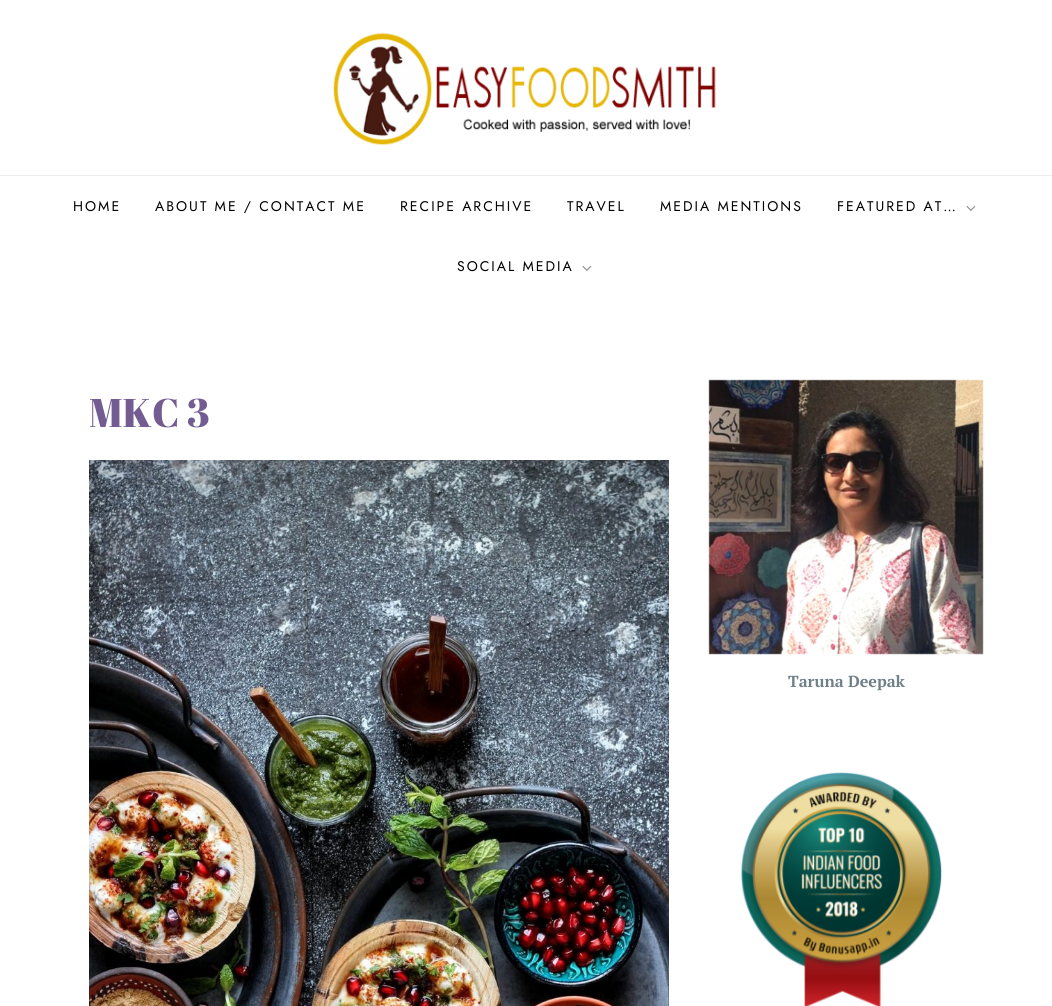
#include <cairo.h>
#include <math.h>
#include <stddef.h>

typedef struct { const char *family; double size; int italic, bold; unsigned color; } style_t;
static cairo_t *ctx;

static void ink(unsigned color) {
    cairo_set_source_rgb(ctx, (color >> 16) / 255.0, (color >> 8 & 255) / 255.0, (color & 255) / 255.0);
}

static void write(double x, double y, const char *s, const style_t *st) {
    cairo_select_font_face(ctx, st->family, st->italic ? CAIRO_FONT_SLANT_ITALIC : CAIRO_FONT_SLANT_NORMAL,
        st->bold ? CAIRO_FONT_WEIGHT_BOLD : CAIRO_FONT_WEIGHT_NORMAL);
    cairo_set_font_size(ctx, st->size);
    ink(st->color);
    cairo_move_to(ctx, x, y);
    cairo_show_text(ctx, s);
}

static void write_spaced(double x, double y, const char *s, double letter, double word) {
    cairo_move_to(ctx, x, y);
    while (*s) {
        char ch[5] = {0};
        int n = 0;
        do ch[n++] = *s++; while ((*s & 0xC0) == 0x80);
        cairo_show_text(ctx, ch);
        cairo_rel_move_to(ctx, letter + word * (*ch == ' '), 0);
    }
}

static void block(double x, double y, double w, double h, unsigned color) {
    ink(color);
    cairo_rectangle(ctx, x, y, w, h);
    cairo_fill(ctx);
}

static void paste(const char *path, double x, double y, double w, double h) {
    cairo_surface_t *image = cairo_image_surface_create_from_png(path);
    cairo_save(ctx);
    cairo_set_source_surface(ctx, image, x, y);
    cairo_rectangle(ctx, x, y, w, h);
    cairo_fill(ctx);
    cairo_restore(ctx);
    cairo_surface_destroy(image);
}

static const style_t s1 = {"Abril Fatface", 40, 0, 0, 0x725c92};
static const style_t s2 = {"PT Serif", 16, 0, 1, 0x6f8089};

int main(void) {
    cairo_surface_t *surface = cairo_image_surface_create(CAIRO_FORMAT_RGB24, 1052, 1006);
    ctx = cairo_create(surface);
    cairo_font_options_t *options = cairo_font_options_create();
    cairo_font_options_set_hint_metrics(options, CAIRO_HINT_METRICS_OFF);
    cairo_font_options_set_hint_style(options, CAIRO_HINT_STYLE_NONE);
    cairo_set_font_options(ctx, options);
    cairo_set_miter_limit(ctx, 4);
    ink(0xffffff);
    cairo_paint(ctx);
    paste("pic1.png", 333, 33, 383, 112);
    block(0, 175, 1052, 1, 0xeeeeee);
    cairo_select_font_face(ctx, "Jost", CAIRO_FONT_SLANT_NORMAL, CAIRO_FONT_WEIGHT_NORMAL);
    cairo_set_font_size(ctx, 14);
    ink(0x000000);
    write_spaced(73, 211, "HOME", 2, 0);
    write_spaced(155, 211, "ABOUT ME / CONTACT ME", 2, 0);
    write_spaced(400, 211, "RECIPE ARCHIVE", 2, 0);
    write_spaced(567, 211, "TRAVEL", 2, 0);
    write_spaced(660, 211, "MEDIA MENTIONS", 2, 0);
    write_spaced(837, 211, "FEATURED AT…", 2, 0);
    paste("pic2.png", 966, 205, 10, 6);
    write_spaced(457, 271, "SOCIAL MEDIA", 2, 0);
    paste("pic2.png", 582, 265, 10, 6);
    write(89, 427, "MKC 3", &s1);
    paste("pic3.png", 89, 460, 580, 546);
    paste("pic4.png", 708, 379, 276, 276);
    write(788, 687, "Taruna Deepak", &s2);
    paste("pic5.png", 741, 772, 201, 234);
    cairo_surface_write_to_png(surface, "screenshot.png");
    cairo_font_options_destroy(options);
    cairo_destroy(ctx);
    cairo_surface_destroy(surface);
    return 0;
}
